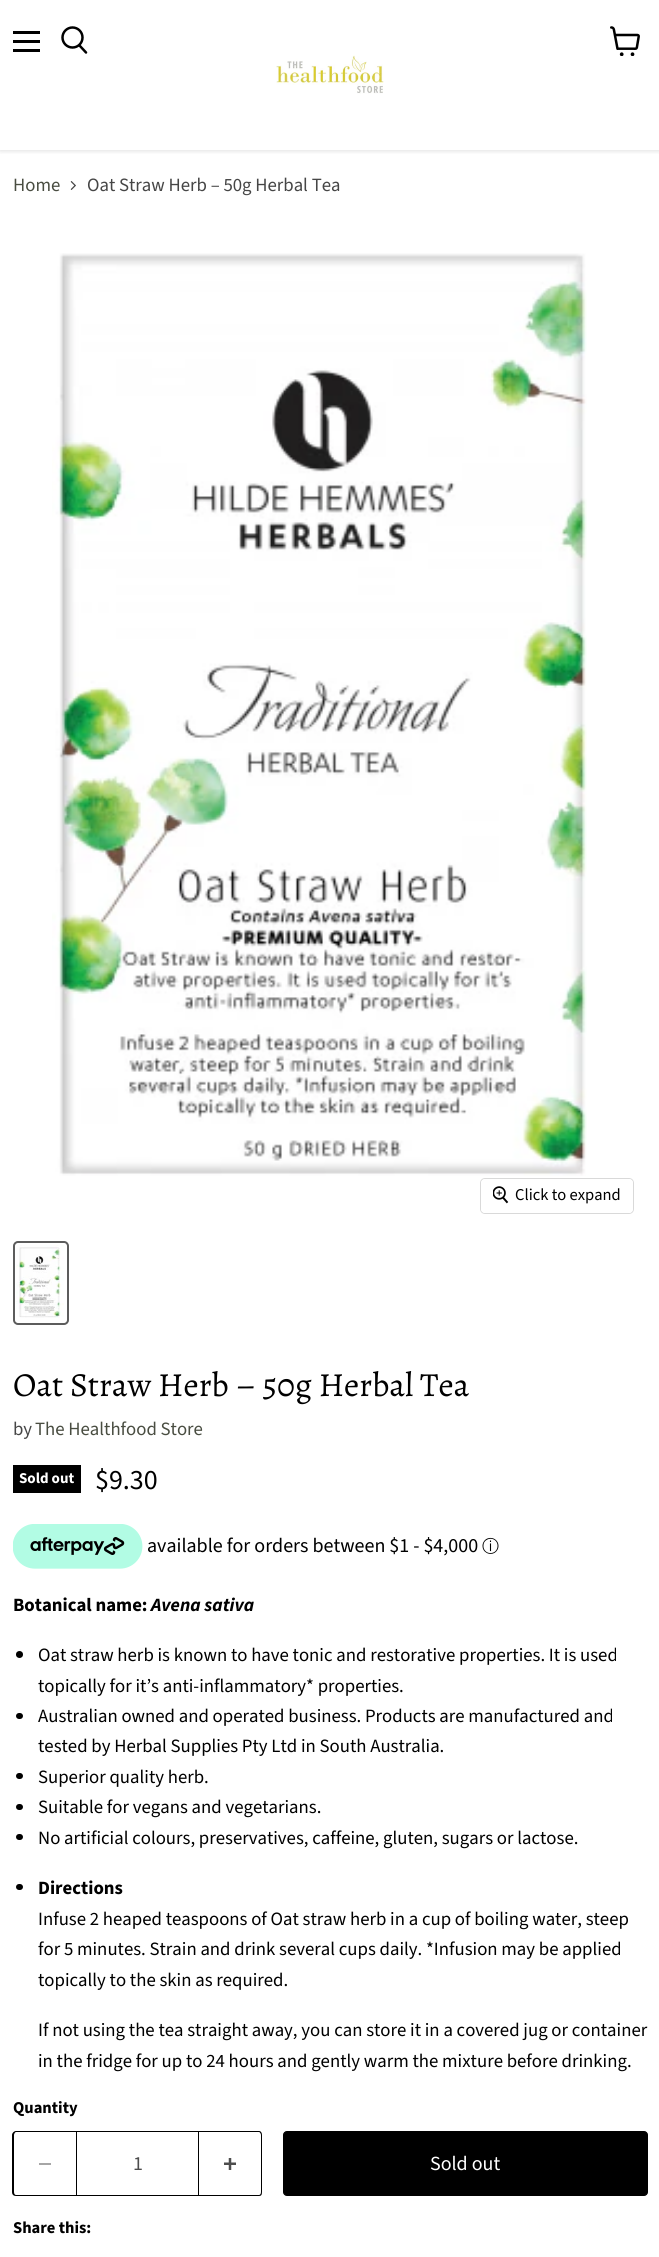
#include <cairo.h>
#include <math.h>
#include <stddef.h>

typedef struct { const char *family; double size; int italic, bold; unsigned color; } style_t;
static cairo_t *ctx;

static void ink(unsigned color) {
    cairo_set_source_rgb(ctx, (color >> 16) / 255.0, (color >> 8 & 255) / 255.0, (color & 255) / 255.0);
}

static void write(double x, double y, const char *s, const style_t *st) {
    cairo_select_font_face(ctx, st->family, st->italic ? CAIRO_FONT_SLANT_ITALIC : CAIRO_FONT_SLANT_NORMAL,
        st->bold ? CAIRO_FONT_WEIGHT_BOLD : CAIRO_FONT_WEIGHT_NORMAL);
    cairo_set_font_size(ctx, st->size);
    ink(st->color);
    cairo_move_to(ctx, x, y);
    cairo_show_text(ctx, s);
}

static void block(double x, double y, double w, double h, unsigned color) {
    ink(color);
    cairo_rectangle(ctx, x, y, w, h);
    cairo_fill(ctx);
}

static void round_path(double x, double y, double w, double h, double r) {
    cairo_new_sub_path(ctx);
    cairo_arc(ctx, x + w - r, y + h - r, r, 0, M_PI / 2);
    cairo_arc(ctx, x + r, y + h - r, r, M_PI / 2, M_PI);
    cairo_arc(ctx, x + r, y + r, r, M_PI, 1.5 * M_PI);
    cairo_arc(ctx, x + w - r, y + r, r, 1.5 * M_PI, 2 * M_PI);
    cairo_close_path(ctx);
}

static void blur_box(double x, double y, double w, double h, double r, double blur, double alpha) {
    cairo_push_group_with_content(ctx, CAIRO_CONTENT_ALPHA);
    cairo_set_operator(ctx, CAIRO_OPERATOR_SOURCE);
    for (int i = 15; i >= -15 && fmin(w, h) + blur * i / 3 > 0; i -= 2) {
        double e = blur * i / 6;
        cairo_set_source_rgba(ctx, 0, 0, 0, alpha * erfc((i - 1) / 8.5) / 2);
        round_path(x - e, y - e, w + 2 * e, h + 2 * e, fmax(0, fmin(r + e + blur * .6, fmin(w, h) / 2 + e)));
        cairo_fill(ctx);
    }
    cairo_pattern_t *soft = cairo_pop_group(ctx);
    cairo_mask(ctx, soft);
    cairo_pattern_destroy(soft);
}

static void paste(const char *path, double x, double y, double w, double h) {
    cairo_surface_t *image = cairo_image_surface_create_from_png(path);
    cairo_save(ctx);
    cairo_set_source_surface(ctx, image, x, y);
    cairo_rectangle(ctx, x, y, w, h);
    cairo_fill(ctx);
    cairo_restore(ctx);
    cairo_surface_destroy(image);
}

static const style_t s1 = {"Source Sans Pro", 18.75, 0, 0, 0x494d41};
static const style_t s2 = {"Source Sans Pro", 18.75, 0, 0, 0x464646};
static const style_t s3 = {"Source Sans Pro", 16.5, 0, 0, 0x000000};
static const style_t s4 = {"Alegreya", 33.75, 0, 0, 0x000000};
static const style_t s5 = {"Source Sans Pro", 15, 0, 1, 0xffffff};
static const style_t s6 = {"Source Sans Pro", 28, 0, 0, 0x000000};
static const style_t s7 = {"Source Sans Pro", 20, 0, 0, 0x000000};
static const style_t s8 = {"WenQuanYi Zen Hei Medium", 17, 0, 0, 0x000000};
static const style_t s9 = {"Source Sans Pro", 18.75, 0, 1, 0x000000};
static const style_t s10 = {"Source Sans Pro", 18.75, 1, 1, 0x000000};
static const style_t s11 = {"Source Sans Pro", 18.75, 0, 0, 0x000000};
static const style_t s12 = {"Source Sans Pro", 16.5, 0, 1, 0x000000};
static const style_t s13 = {"Source Sans Pro", 20, 0, 0, 0x4d4d4d};
static const style_t s14 = {"Source Sans Pro", 20, 0, 0, 0xffffff};

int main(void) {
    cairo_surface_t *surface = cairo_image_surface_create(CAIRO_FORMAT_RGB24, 659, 2257);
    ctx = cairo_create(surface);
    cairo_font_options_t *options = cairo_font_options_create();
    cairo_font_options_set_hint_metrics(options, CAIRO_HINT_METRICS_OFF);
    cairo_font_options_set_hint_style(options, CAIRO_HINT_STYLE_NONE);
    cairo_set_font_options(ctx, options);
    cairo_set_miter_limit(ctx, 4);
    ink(0xffffff);
    cairo_paint(ctx);
    cairo_save(ctx);
    cairo_rectangle(ctx, 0, 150, 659, 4);
    cairo_clip(ctx);
    ink(0x808080);
    blur_box(0, 1, 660, 150, 0, 2.5, 0.25);
    cairo_restore(ctx);
    block(13, 31, 27, 3, 0x000000);
    block(13, 40, 27, 3, 0x000000);
    block(13, 49, 27, 3, 0x000000);
    cairo_new_path(ctx);
    cairo_move_to(ctx, 86, 52.5);
    cairo_line_to(ctx, 79.5, 45.5);
    cairo_set_line_width(ctx, 2.5);
    cairo_set_line_cap(ctx, CAIRO_LINE_CAP_ROUND);
    cairo_stroke(ctx);
    cairo_arc(ctx, 72.5, 37.5, 10, 0, 2 * M_PI);
    cairo_set_line_cap(ctx, CAIRO_LINE_CAP_BUTT);
    cairo_stroke(ctx);
    paste("pic1.png", 610, 26, 30, 30);
    paste("pic2.png", 276, 55, 108, 39);
    write(13, 191, "Home", &s1);
    paste("pic3.png", 70, 181, 6, 9);
    write(87, 191, "Oat Straw Herb – 50g Herbal Tea", &s2);
    paste("pic4.png", 52, 253, 535, 923);
    round_path(480.5, 1178.5, 153, 35, 4.5);
    ink(0xd9d9d9);
    cairo_set_line_width(ctx, 1);
    cairo_stroke(ctx);
    cairo_set_source_rgba(ctx, 1, 1, 1, 0.9);
    round_path(481, 1179, 152, 34, 4);
    cairo_fill(ctx);
    paste("pic5.png", 493, 1186, 16, 18);
    write(515, 1200, "Click to expand", &s3);
    round_path(14, 1242, 54, 82, 4);
    ink(0x5c5c5c);
    cairo_set_line_width(ctx, 2);
    cairo_stroke(ctx);
    paste("pic6.png", 16, 1245, 48, 73);
    write(13, 1396, "Oat Straw Herb – 50g Herbal Tea", &s4);
    write(13, 1435, "by", &s2);
    write(35, 1435, "The Healthfood Store", &s1);
    block(13, 1465, 68, 28, 0x000000);
    write(19, 1483, "Sold out", &s5);
    write(95, 1489, "$9.30", &s6);
    paste("pic7.png", 13, 1524, 130, 45);
    write(147, 1552, "available for orders between $1 - $4,000", &s7);
    write(482, 1552, "ⓘ", &s8);
    write(13, 1611, "Botanical name:", &s9);
    write(151, 1611, "Avena sativa", &s10);
    cairo_new_path(ctx);
    cairo_arc(ctx, 19.5, 1654.5, 3.5, 0, 2 * M_PI);
    cairo_fill(ctx);
    write(38, 1661, "Oat straw herb is known to have tonic and restorative properties. It is used", &s11);
    write(38, 1692, "topically for it’s anti-inflammatory* properties.", &s11);
    round_path(16, 1713, 7, 6, 3);
    cairo_fill(ctx);
    write(38, 1722, "Australian owned and operated business. Products are manufactured and", &s11);
    write(38, 1752, "tested by Herbal Supplies Pty Ltd in South Australia.", &s11);
    round_path(16, 1773, 7, 6, 3);
    cairo_fill(ctx);
    write(38, 1783, "Superior quality herb.", &s11);
    round_path(16, 1804, 7, 6, 3);
    cairo_fill(ctx);
    write(38, 1813, "Suitable for vegans and vegetarians.", &s11);
    round_path(16, 1834, 7, 6, 3);
    cairo_fill(ctx);
    write(38, 1844, "No artificial colours, preservatives, caffeine, gluten, sugars or lactose.", &s11);
    round_path(16, 1884, 7, 6, 3);
    cairo_fill(ctx);
    write(38, 1894, "Directions", &s9);
    write(38, 1925, "Infuse 2 heaped teaspoons of Oat straw herb in a cup of boiling water, steep", &s11);
    write(38, 1955, "for 5 minutes. Strain and drink several cups daily. *Infusion may be applied", &s11);
    write(38, 1986, "topically to the skin as required.", &s11);
    write(38, 2036, "If not using the tea straight away, you can store it in a covered jug or container", &s11);
    write(38, 2067, "in the fridge for up to 24 hours and gently warm the mixture before drinking.", &s11);
    write(13, 2113, "Quantity", &s12);
    cairo_set_fill_rule(ctx, CAIRO_FILL_RULE_EVEN_ODD);
    cairo_new_path(ctx);
    cairo_move_to(ctx, 16, 2131);
    cairo_line_to(ctx, 76, 2131);
    cairo_line_to(ctx, 76, 2196);
    cairo_line_to(ctx, 16, 2196);
    cairo_curve_to(ctx, 14, 2196, 12, 2195, 12, 2192);
    cairo_line_to(ctx, 12, 2135);
    cairo_curve_to(ctx, 12, 2133, 14, 2131, 16, 2131);
    cairo_close_path(ctx);
    cairo_move_to(ctx, 16, 2132);
    cairo_line_to(ctx, 76, 2132);
    cairo_line_to(ctx, 76, 2195);
    cairo_line_to(ctx, 16, 2195);
    cairo_curve_to(ctx, 15, 2195, 14, 2194, 14, 2192);
    cairo_line_to(ctx, 14, 2135);
    cairo_curve_to(ctx, 14, 2134, 15, 2132, 16, 2132);
    cairo_close_path(ctx);
    cairo_fill(ctx);
    block(39, 2163, 12, 2, 0xa6a6a6);
    cairo_rectangle(ctx, 76.5, 2131.5, 122, 64);
    ink(0x000000);
    cairo_set_line_width(ctx, 1);
    cairo_stroke(ctx);
    write(133, 2170, "1", &s13);
    ink(0x000000);
    cairo_new_path(ctx);
    cairo_move_to(ctx, 199, 2131);
    cairo_line_to(ctx, 259, 2131);
    cairo_curve_to(ctx, 261, 2131, 262, 2133, 262, 2135);
    cairo_line_to(ctx, 262, 2192);
    cairo_curve_to(ctx, 262, 2195, 261, 2196, 259, 2196);
    cairo_line_to(ctx, 199, 2196);
    cairo_close_path(ctx);
    cairo_move_to(ctx, 199, 2132);
    cairo_line_to(ctx, 259, 2132);
    cairo_curve_to(ctx, 260, 2132, 261, 2134, 261, 2135);
    cairo_line_to(ctx, 261, 2192);
    cairo_curve_to(ctx, 261, 2194, 260, 2195, 259, 2195);
    cairo_line_to(ctx, 199, 2195);
    cairo_close_path(ctx);
    cairo_fill(ctx);
    paste("pic8.png", 224, 2158, 12, 12);
    round_path(283.5, 2131.5, 364, 64, 3.5);
    cairo_fill_preserve(ctx);
    cairo_stroke(ctx);
    write(430, 2170, "Sold out", &s14);
    write(13, 2233, "Share this:", &s12);
    cairo_surface_write_to_png(surface, "screenshot.png");
    cairo_font_options_destroy(options);
    cairo_destroy(ctx);
    cairo_surface_destroy(surface);
    return 0;
}
